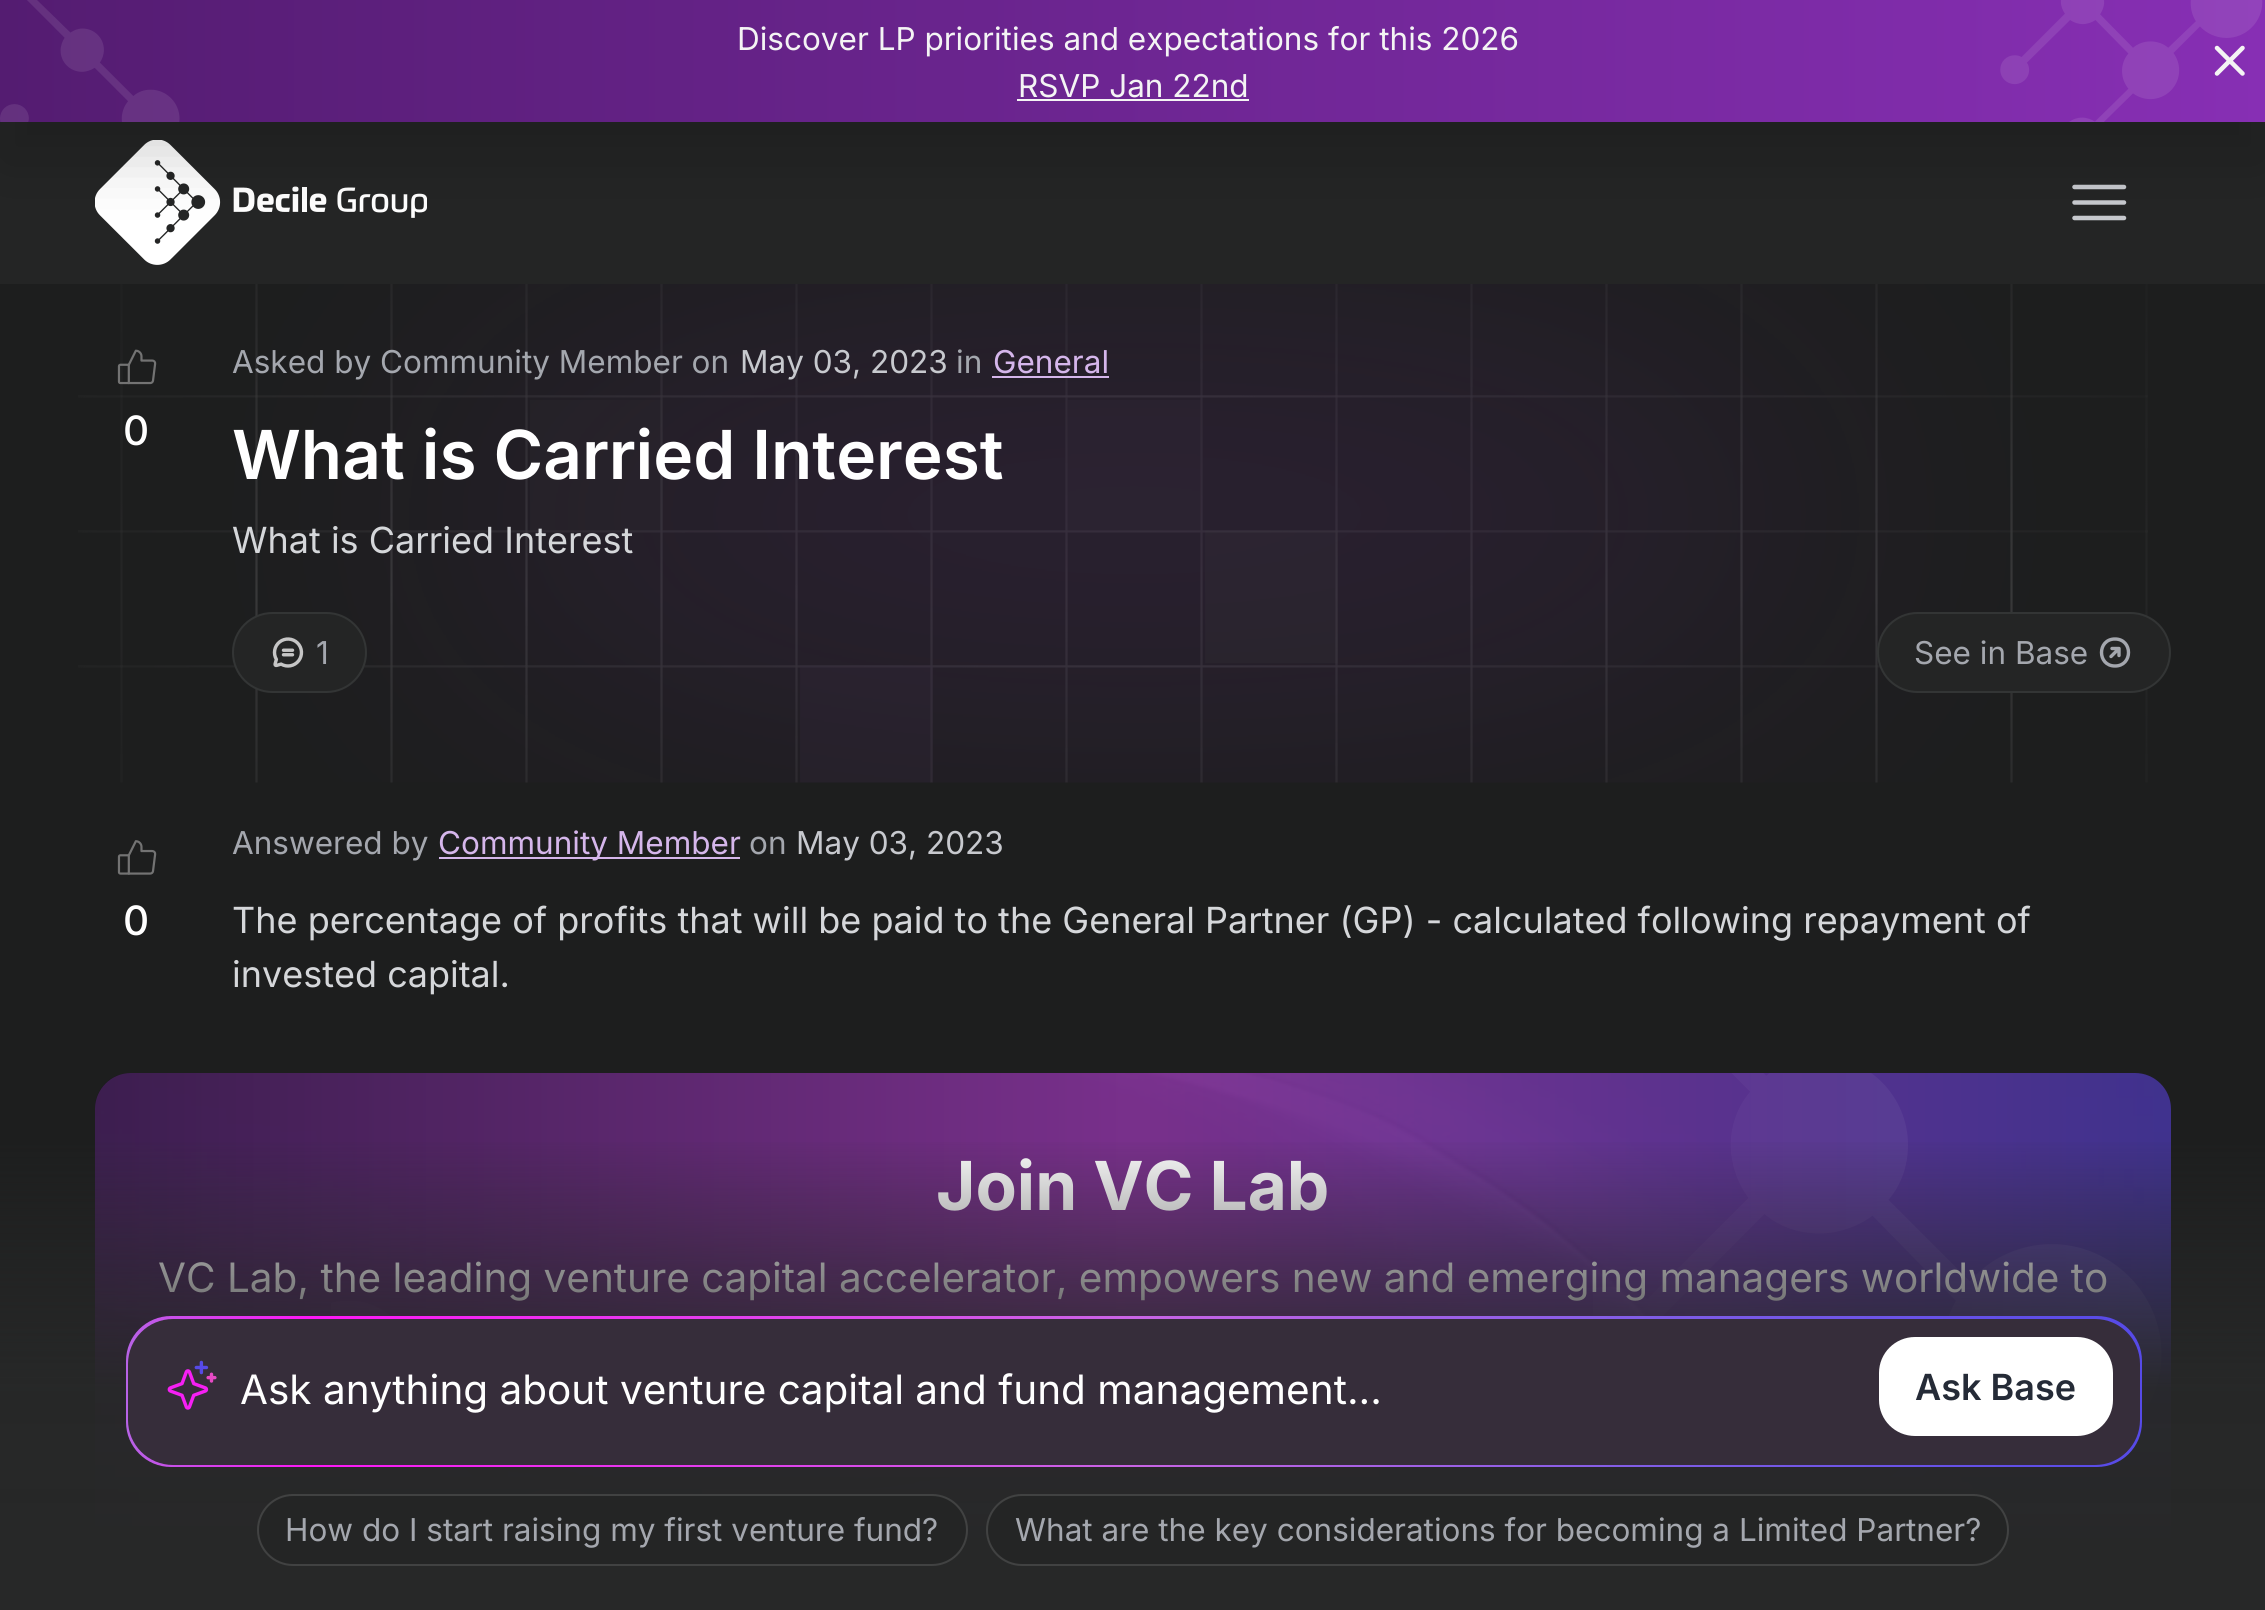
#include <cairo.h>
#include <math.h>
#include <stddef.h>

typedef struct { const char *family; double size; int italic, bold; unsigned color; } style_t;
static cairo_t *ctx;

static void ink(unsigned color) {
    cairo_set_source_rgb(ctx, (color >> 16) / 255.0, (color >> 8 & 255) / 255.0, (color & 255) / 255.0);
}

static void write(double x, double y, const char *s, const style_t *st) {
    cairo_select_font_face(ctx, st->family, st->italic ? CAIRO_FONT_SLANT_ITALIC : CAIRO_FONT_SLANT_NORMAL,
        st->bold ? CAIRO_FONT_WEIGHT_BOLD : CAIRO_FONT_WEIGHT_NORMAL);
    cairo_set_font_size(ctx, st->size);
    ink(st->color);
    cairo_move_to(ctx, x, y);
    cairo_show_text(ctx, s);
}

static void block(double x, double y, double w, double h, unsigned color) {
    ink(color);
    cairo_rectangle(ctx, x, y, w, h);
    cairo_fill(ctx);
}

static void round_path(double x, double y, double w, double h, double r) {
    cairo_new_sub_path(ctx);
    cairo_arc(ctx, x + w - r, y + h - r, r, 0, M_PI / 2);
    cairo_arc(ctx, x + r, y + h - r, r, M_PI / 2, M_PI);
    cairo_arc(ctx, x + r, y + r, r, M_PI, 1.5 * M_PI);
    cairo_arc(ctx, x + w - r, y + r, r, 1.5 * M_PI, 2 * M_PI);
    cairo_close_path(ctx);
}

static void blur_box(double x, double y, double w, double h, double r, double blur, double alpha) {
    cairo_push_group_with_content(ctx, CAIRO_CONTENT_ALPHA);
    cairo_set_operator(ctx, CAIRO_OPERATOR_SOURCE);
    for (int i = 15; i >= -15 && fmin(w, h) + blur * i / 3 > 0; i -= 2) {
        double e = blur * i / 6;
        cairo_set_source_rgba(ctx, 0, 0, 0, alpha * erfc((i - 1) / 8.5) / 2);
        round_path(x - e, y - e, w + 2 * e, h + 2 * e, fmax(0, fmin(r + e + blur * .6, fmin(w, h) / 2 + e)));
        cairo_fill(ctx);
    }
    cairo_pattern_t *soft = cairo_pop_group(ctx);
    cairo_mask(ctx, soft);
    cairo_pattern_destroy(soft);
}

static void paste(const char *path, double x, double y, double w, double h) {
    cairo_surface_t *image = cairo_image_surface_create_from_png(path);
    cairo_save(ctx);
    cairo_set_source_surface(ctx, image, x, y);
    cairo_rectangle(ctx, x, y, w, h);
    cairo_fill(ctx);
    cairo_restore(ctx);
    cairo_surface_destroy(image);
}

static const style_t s1 = {"Inter", 31.5, 0, 0, 0xf4f4f4};
static const style_t s2 = {"Inter Medium", 40.5, 0, 0, 0xffffff};
static const style_t s3 = {"Inter", 31.5, 0, 0, 0xa4a7ae};
static const style_t s4 = {"Inter", 31.5, 0, 0, 0xc7c9ce};
static const style_t s5 = {"Inter", 31.5, 0, 0, 0xd5b6eb};
static const style_t s6 = {"Inter SemiBold", 67.5, 0, 0, 0xffffff};
static const style_t s7 = {"Inter", 36, 0, 0, 0xd5d7da};
static const style_t s8 = {"Inter", 67.5, 0, 1, 0xffffff};
static const style_t s9 = {"Inter", 40.5, 0, 0, 0xffffff};
static const style_t s10 = {"Inter SemiBold", 36, 0, 0, 0x252b37};

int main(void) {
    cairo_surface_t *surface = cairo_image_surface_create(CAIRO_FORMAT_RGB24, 2265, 1610);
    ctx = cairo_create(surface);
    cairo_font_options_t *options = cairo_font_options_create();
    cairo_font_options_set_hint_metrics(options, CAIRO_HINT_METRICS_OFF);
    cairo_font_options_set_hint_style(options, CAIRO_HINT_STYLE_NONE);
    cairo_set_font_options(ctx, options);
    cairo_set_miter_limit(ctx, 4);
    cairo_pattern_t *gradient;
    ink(0x1d1e1e);
    cairo_paint(ctx);
    block(0, 122, 2265, 162, 0x242525);
    paste("pic3.png", 95, 140, 332, 125);
    cairo_new_path(ctx);
    cairo_move_to(ctx, 2074.5, 187);
    cairo_line_to(ctx, 2124, 187);
    cairo_move_to(ctx, 2074.5, 202.5);
    cairo_line_to(ctx, 2124, 202.5);
    cairo_move_to(ctx, 2074.5, 218);
    cairo_line_to(ctx, 2124, 218);
    ink(0xc7c9ce);
    cairo_set_line_width(ctx, 4.5);
    cairo_set_line_cap(ctx, CAIRO_LINE_CAP_ROUND);
    cairo_set_line_join(ctx, CAIRO_LINE_JOIN_ROUND);
    cairo_stroke(ctx);
    ink(0x000000);
    blur_box(0, 41, 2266, 121, 0, 31.5, 0.15);
    gradient = cairo_pattern_create_linear(0, 61, 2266, 61);
    cairo_pattern_add_color_stop_rgba(gradient, 0, 0.329, 0.11, 0.443, 1);
    cairo_pattern_add_color_stop_rgba(gradient, 1, 0.529, 0.184, 0.706, 1);
    cairo_set_source(ctx, gradient);
    cairo_pattern_destroy(gradient);
    cairo_rectangle(ctx, 0, 0, 2265, 122);
    cairo_fill(ctx);
    paste("pic1.png", 0, 0, 180, 122);
    write(737, 50, "Discover LP priorities and expectations for this 2026", &s1);
    paste("pic2.png", 2000, 0, 263, 122);
    cairo_new_path(ctx);
    cairo_move_to(ctx, 2242.5, 48);
    cairo_line_to(ctx, 2217, 73.5);
    cairo_move_to(ctx, 2242.5, 73.5);
    cairo_line_to(ctx, 2217, 48);
    cairo_stroke(ctx);
    write(1018, 97, "RSVP Jan 22nd", &s1);
    block(1017, 99, 232, 2, 0xf4f4f4);
    paste("pic4.png", 78, 284, 2070, 499);
    paste("pic5.png", 117, 349, 40, 36);
    write(123, 445, "0", &s2);
    write(232, 373, "Asked by Community Member on", &s3);
    write(740, 373, "May 03, 2023", &s4);
    write(956, 373, "in", &s3);
    write(993, 373, "General", &s5);
    block(992, 376, 117, 2, 0xd5b6eb);
    write(232, 479, "What is Carried Interest", &s6);
    write(232, 553, "What is Carried Interest", &s7);
    ink(0x242525);
    round_path(233, 613, 133, 79, 39.5);
    cairo_fill_preserve(ctx);
    ink(0x333535);
    cairo_set_line_width(ctx, 2);
    cairo_set_line_cap(ctx, CAIRO_LINE_CAP_BUTT);
    cairo_set_line_join(ctx, CAIRO_LINE_JOIN_MITER);
    cairo_stroke(ctx);
    paste("pic6.png", 272, 637, 32, 31);
    write(316, 664, "1", &s3);
    ink(0x242525);
    round_path(1878, 613, 292, 79, 39.5);
    cairo_fill_preserve(ctx);
    ink(0x333535);
    cairo_stroke(ctx);
    write(1914, 664, "See in Base", &s3);
    cairo_new_path(ctx);
    cairo_move_to(ctx, 2115, 666);
    cairo_curve_to(ctx, 2133, 666, 2133, 639, 2115, 639);
    cairo_curve_to(ctx, 2097, 639, 2097, 666, 2115, 666);
    cairo_close_path(ctx);
    cairo_move_to(ctx, 2112, 648.5);
    cairo_line_to(ctx, 2119, 648.5);
    cairo_line_to(ctx, 2119, 655.5);
    cairo_move_to(ctx, 2111, 656.5);
    cairo_line_to(ctx, 2119, 648.5);
    cairo_set_line_width(ctx, 3.4);
    cairo_set_line_cap(ctx, CAIRO_LINE_CAP_ROUND);
    cairo_set_line_join(ctx, CAIRO_LINE_JOIN_ROUND);
    cairo_stroke(ctx);
    paste("pic7.png", 117, 840, 40, 35);
    write(123, 935, "0", &s2);
    write(232, 854, "Answered by", &s3);
    block(439, 857, 301, 2, 0xd5b6eb);
    write(438, 854, "Community Member", &s5);
    write(749, 854, "on", &s3);
    write(796, 854, "May 03, 2023", &s4);
    write(232, 933, "The percentage of profits that will be paid to the General Partner (GP) - calculated following repayment of", &s7);
    write(232, 987, "invested capital.", &s7);
    paste("pic8.png", 95, 1073, 2076, 453);
    gradient = cairo_pattern_create_linear(95, 1412, 2171, 1412);
    cairo_pattern_add_color_stop_rgba(gradient, 0, 0.329, 0.129, 0.439, 0.6);
    cairo_pattern_add_color_stop_rgba(gradient, 0.5, 0.722, 0.247, 0.839, 0.6);
    cairo_pattern_add_color_stop_rgba(gradient, 1, 0.337, 0.247, 0.839, 0.6);
    cairo_set_source(ctx, gradient);
    cairo_pattern_destroy(gradient);
    round_path(95, 1073, 2076, 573, 36);
    cairo_fill(ctx);
    write(936, 1210, "Join VC Lab", &s8);
    write(158, 1292, "VC Lab, the leading venture capital accelerator, empowers new and emerging managers worldwide to", &s9);
    paste("pic9.png", 1593, 1073, 569, 421);
    paste("pic10.png", 331, 1301, 256, 193);
    gradient = cairo_pattern_create_linear(1133, 1136, 1133, 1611);
    cairo_pattern_add_color_stop_rgba(gradient, 0, 0.153, 0.157, 0.157, 0);
    cairo_pattern_add_color_stop_rgba(gradient, 0.24, 0.153, 0.157, 0.157, 0.45);
    cairo_pattern_add_color_stop_rgba(gradient, 0.53, 0.153, 0.157, 0.157, 0.95);
    cairo_pattern_add_color_stop_rgba(gradient, 0.86, 0.153, 0.157, 0.157, 1);
    cairo_set_source(ctx, gradient);
    cairo_pattern_destroy(gradient);
    cairo_rectangle(ctx, 0, 1142, 2265, 468);
    cairo_fill(ctx);
    gradient = cairo_pattern_create_linear(126, 1392, 2142, 1392);
    cairo_pattern_add_color_stop_rgba(gradient, 0, 0.718, 0.388, 0.902, 1);
    cairo_pattern_add_color_stop_rgba(gradient, 0.09, 0.992, 0.09, 0.965, 1);
    cairo_pattern_add_color_stop_rgba(gradient, 0.5, 0.788, 0.392, 0.898, 1);
    cairo_pattern_add_color_stop_rgba(gradient, 0.75, 0.506, 0.365, 0.902, 1);
    cairo_pattern_add_color_stop_rgba(gradient, 1, 0.337, 0.29, 0.906, 1);
    cairo_set_source(ctx, gradient);
    cairo_pattern_destroy(gradient);
    round_path(126, 1316, 2016, 151, 45);
    cairo_fill(ctx);
    ink(0x362d3a);
    round_path(128, 1319, 2012, 146, 45);
    cairo_fill(ctx);
    paste("pic11.png", 167, 1360, 50, 50);
    write(240, 1404, "Ask anything about venture capital and fund management...", &s9);
    round_path(1879, 1337, 234, 99, 36);
    cairo_fill(ctx);
    write(1915, 1400, "Ask Base", &s10);
    ink(0x242525);
    round_path(258, 1495, 709, 70, 35);
    cairo_fill_preserve(ctx);
    ink(0x414242);
    cairo_set_line_width(ctx, 2);
    cairo_set_line_cap(ctx, CAIRO_LINE_CAP_BUTT);
    cairo_set_line_join(ctx, CAIRO_LINE_JOIN_MITER);
    cairo_stroke(ctx);
    write(285, 1541, "How do I start raising my first venture fund?", &s3);
    ink(0x242525);
    round_path(987, 1495, 1021, 70, 35);
    cairo_fill_preserve(ctx);
    ink(0x414242);
    cairo_stroke(ctx);
    write(1015, 1541, "What are the key considerations for becoming a Limited Partner?", &s3);
    cairo_surface_write_to_png(surface, "screenshot.png");
    cairo_font_options_destroy(options);
    cairo_destroy(ctx);
    cairo_surface_destroy(surface);
    return 0;
}
